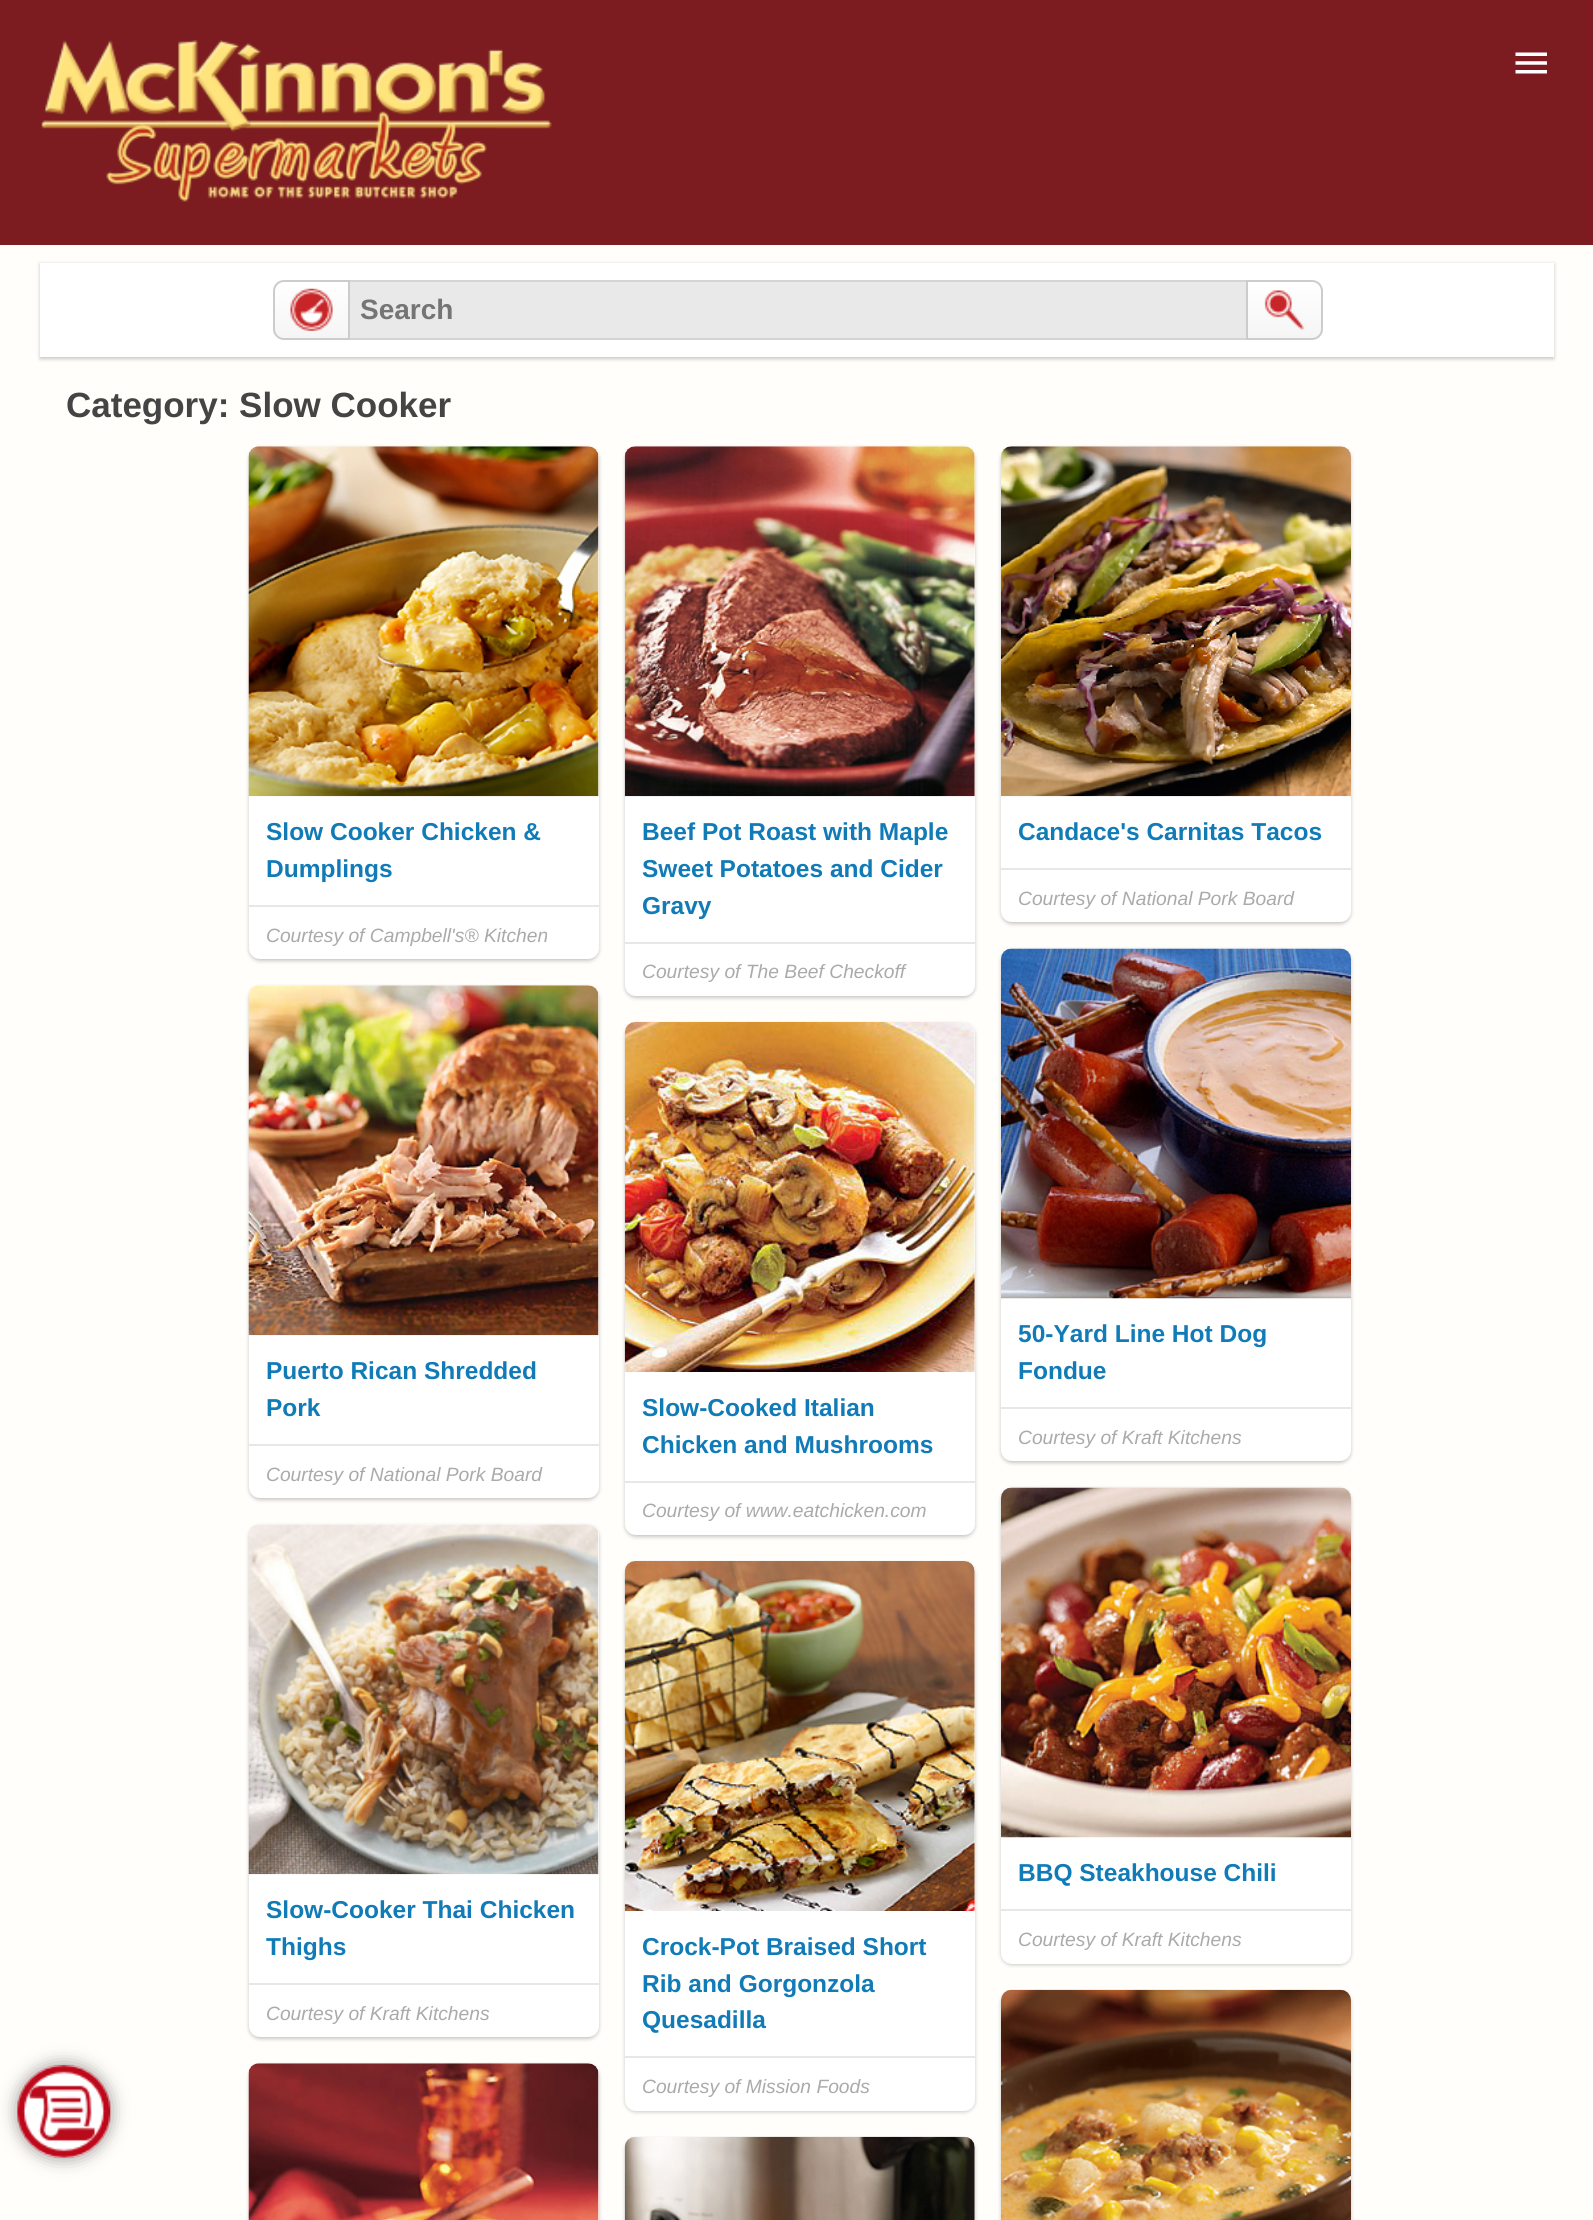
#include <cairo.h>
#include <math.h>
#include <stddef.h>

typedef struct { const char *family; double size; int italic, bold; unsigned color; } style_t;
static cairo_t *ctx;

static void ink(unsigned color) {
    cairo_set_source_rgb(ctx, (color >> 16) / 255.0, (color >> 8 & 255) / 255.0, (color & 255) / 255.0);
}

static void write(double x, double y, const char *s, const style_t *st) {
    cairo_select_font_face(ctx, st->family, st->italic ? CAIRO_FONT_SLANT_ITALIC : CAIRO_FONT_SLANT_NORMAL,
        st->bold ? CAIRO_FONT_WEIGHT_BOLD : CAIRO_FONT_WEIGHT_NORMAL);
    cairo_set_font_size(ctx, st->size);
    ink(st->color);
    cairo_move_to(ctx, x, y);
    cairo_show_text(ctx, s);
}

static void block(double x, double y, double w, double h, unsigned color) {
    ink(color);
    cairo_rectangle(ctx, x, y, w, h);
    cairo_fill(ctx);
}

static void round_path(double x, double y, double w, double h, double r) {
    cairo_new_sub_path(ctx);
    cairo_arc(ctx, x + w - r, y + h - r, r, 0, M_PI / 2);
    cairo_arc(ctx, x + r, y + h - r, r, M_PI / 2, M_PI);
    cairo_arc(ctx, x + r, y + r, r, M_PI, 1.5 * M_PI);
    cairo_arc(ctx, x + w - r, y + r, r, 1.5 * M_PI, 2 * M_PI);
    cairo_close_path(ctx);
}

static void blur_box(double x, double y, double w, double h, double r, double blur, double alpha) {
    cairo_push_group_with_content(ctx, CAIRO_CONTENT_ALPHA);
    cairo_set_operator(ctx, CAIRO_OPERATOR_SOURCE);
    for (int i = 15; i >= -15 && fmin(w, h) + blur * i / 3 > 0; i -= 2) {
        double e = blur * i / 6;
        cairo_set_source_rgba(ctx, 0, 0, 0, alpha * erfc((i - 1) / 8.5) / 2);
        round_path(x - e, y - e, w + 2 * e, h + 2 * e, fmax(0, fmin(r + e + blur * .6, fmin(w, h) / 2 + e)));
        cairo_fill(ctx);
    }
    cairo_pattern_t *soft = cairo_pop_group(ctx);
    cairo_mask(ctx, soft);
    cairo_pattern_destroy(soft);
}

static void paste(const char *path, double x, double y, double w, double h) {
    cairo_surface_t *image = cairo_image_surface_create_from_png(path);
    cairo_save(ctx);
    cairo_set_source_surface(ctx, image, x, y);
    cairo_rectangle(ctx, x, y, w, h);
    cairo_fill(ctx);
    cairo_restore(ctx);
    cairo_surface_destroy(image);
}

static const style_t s1 = {"Liberation Sans", 28, 0, 1, 0x757575};
static const style_t s2 = {"Liberation Sans", 35, 0, 1, 0x444444};
static const style_t s3 = {"Liberation Sans", 24.5, 0, 1, 0x117bb8};
static const style_t s4 = {"Liberation Sans", 19.25, 1, 0, 0xaaaaaa};

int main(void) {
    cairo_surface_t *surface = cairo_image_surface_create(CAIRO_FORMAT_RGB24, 1593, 2220);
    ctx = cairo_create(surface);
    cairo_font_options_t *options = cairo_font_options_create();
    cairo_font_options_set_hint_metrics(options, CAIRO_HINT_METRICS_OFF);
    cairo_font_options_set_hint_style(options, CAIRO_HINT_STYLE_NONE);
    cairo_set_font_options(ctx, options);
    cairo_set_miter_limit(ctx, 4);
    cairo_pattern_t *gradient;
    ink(0x7d1c20);
    cairo_paint(ctx);
    paste("pic1.png", 41, 40, 511, 162);
    paste("pic2.png", 1515, 52, 32, 22);
    block(0, 245, 1593, 1975, 0xfffefa);
    ink(0x000000);
    blur_box(40, 264, 1514, 95, 0, 2, 0.22);
    block(40, 263, 1514, 94, 0xffffff);
    cairo_save(ctx);
    cairo_new_path(ctx);
    cairo_move_to(ctx, 284, 280);
    cairo_line_to(ctx, 350, 280);
    cairo_line_to(ctx, 350, 340);
    cairo_line_to(ctx, 284, 340);
    cairo_curve_to(ctx, 278, 340, 273, 335, 273, 329);
    cairo_line_to(ctx, 273, 291);
    cairo_curve_to(ctx, 273, 285, 278, 280, 284, 280);
    cairo_close_path(ctx);
    cairo_clip(ctx);
    gradient = cairo_pattern_create_linear(312, 282, 312, 338);
    cairo_pattern_add_color_stop_rgba(gradient, 0, 1, 1, 1, 1);
    cairo_pattern_add_color_stop_rgba(gradient, 1, 0.961, 0.961, 0.961, 1);
    cairo_set_source(ctx, gradient);
    cairo_pattern_destroy(gradient);
    cairo_rectangle(ctx, 273, 282, 75, 56);
    cairo_fill(ctx);
    cairo_restore(ctx);
    cairo_new_path(ctx);
    cairo_move_to(ctx, 284, 281);
    cairo_line_to(ctx, 349, 281);
    cairo_line_to(ctx, 349, 339);
    cairo_line_to(ctx, 284, 339);
    cairo_curve_to(ctx, 278.5, 339, 274, 334.5, 274, 329);
    cairo_line_to(ctx, 274, 291);
    cairo_curve_to(ctx, 274, 285.5, 278.5, 281, 284, 281);
    cairo_close_path(ctx);
    ink(0xcccccc);
    cairo_stroke(ctx);
    paste("pic3.png", 290, 288, 43, 43);
    block(350, 282, 896, 56, 0xe9e9e9);
    block(350, 280, 896, 2, 0xd4d4d4);
    block(350, 338, 896, 2, 0xd4d4d4);
    write(360, 319, "Search", &s1);
    cairo_save(ctx);
    cairo_new_path(ctx);
    cairo_move_to(ctx, 1246, 280);
    cairo_line_to(ctx, 1312, 280);
    cairo_curve_to(ctx, 1318, 280, 1323, 285, 1323, 291);
    cairo_line_to(ctx, 1323, 329);
    cairo_curve_to(ctx, 1323, 335, 1318, 340, 1312, 340);
    cairo_line_to(ctx, 1246, 340);
    cairo_close_path(ctx);
    cairo_clip(ctx);
    gradient = cairo_pattern_create_linear(1285, 282, 1285, 338);
    cairo_pattern_add_color_stop_rgba(gradient, 0, 1, 1, 1, 1);
    cairo_pattern_add_color_stop_rgba(gradient, 1, 0.961, 0.961, 0.961, 1);
    cairo_set_source(ctx, gradient);
    cairo_pattern_destroy(gradient);
    cairo_rectangle(ctx, 1248, 282, 75, 56);
    cairo_fill(ctx);
    cairo_restore(ctx);
    cairo_new_path(ctx);
    cairo_move_to(ctx, 1247, 281);
    cairo_line_to(ctx, 1312, 281);
    cairo_curve_to(ctx, 1317.5, 281, 1322, 285.5, 1322, 291);
    cairo_line_to(ctx, 1322, 329);
    cairo_curve_to(ctx, 1322, 334.5, 1317.5, 339, 1312, 339);
    cairo_line_to(ctx, 1247, 339);
    cairo_close_path(ctx);
    ink(0xcccccc);
    cairo_stroke(ctx);
    paste("pic4.png", 1264, 290, 41, 40);
    write(66, 417, "Category: Slow Cooker", &s2);
    ink(0x000000);
    blur_box(249, 448, 350, 513, 11, 2, 0.22);
    ink(0xffffff);
    round_path(249, 446, 350, 513, 11);
    cairo_fill(ctx);
    paste("pic5.png", 248, 446, 351, 351);
    write(266, 840, "Slow Cooker Chicken &", &s3);
    write(266, 877, "Dumplings", &s3);
    block(249, 905, 350, 2, 0xe7e7e7);
    write(266, 942, "Courtesy of Campbell's® Kitchen", &s4);
    ink(0x000000);
    blur_box(625, 448, 350, 550, 11, 2, 0.22);
    ink(0xffffff);
    round_path(625, 446, 350, 550, 11);
    cairo_fill(ctx);
    paste("pic6.png", 624, 446, 351, 351);
    write(642, 840, "Beef Pot Roast with Maple", &s3);
    write(642, 877, "Sweet Potatoes and Cider", &s3);
    write(642, 914, "Gravy", &s3);
    block(625, 942, 350, 2, 0xe7e7e7);
    write(642, 978, "Courtesy of The Beef Checkoff", &s4);
    ink(0x000000);
    blur_box(1001, 448, 350, 476, 11, 2, 0.22);
    ink(0xffffff);
    round_path(1001, 446, 350, 476, 11);
    cairo_fill(ctx);
    paste("pic7.png", 1001, 446, 350, 351);
    write(1018, 840, "Candace's Carnitas Tacos", &s3);
    block(1001, 868, 350, 2, 0xe7e7e7);
    write(1018, 905, "Courtesy of National Pork Board", &s4);
    ink(0x000000);
    blur_box(249, 987, 350, 513, 11, 2, 0.22);
    ink(0xffffff);
    round_path(249, 985, 350, 513, 11);
    cairo_fill(ctx);
    paste("pic8.png", 248, 985, 351, 351);
    write(266, 1379, "Puerto Rican Shredded", &s3);
    write(266, 1416, "Pork", &s3);
    block(249, 1444, 350, 2, 0xe7e7e7);
    write(266, 1481, "Courtesy of National Pork Board", &s4);
    ink(0x000000);
    blur_box(625, 1024, 350, 513, 11, 2, 0.22);
    ink(0xffffff);
    round_path(625, 1022, 350, 513, 11);
    cairo_fill(ctx);
    paste("pic9.png", 624, 1022, 351, 350);
    write(642, 1416, "Slow-Cooked Italian", &s3);
    write(642, 1453, "Chicken and Mushrooms", &s3);
    block(625, 1481, 350, 2, 0xe7e7e7);
    write(642, 1517, "Courtesy of www.eatchicken.com", &s4);
    ink(0x000000);
    blur_box(1001, 950, 350, 513, 11, 2, 0.22);
    ink(0xffffff);
    round_path(1001, 949, 350, 512, 11);
    cairo_fill(ctx);
    paste("pic10.png", 1001, 948, 350, 351);
    write(1018, 1342, "50-Yard Line Hot Dog", &s3);
    write(1018, 1379, "Fondue", &s3);
    block(1001, 1407, 350, 2, 0xe7e7e7);
    write(1018, 1444, "Courtesy of Kraft Kitchens", &s4);
    ink(0x000000);
    blur_box(249, 1526, 350, 513, 11, 2, 0.22);
    ink(0xffffff);
    round_path(249, 1524, 350, 513, 11);
    cairo_fill(ctx);
    paste("pic11.png", 248, 1524, 351, 351);
    write(266, 1918, "Slow-Cooker Thai Chicken", &s3);
    write(266, 1955, "Thighs", &s3);
    block(249, 1983, 350, 2, 0xe7e7e7);
    write(266, 2020, "Courtesy of Kraft Kitchens", &s4);
    ink(0x000000);
    blur_box(625, 1563, 350, 549, 11, 2, 0.22);
    ink(0xffffff);
    round_path(625, 1561, 350, 550, 11);
    cairo_fill(ctx);
    paste("pic12.png", 624, 1561, 351, 350);
    write(642, 1955, "Crock-Pot Braised Short", &s3);
    write(642, 1992, "Rib and Gorgonzola", &s3);
    write(642, 2028, "Quesadilla", &s3);
    block(625, 2056, 350, 2, 0xe7e7e7);
    write(642, 2093, "Courtesy of Mission Foods", &s4);
    ink(0x000000);
    blur_box(1001, 1489, 350, 476, 11, 2, 0.22);
    ink(0xffffff);
    round_path(1001, 1488, 350, 476, 11);
    cairo_fill(ctx);
    paste("pic13.png", 1001, 1487, 350, 351);
    write(1018, 1881, "BBQ Steakhouse Chili", &s3);
    block(1001, 1909, 350, 2, 0xe7e7e7);
    write(1018, 1946, "Courtesy of Kraft Kitchens", &s4);
    ink(0x000000);
    blur_box(249, 2065, 350, 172, 11, 2, 0.22);
    ink(0xffffff);
    round_path(249, 2063, 350, 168, 11);
    cairo_fill(ctx);
    paste("pic14.png", 248, 2063, 351, 157);
    ink(0x000000);
    blur_box(625, 2139, 350, 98, 11, 2, 0.22);
    ink(0xffffff);
    round_path(625, 2137, 350, 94, 11);
    cairo_fill(ctx);
    paste("pic15.png", 624, 2136, 351, 84);
    ink(0x000000);
    blur_box(1001, 1992, 350, 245, 11, 2, 0.22);
    paste("pic16.png", 1001, 1989, 350, 231);
    cairo_save(ctx);
    cairo_set_fill_rule(ctx, CAIRO_FILL_RULE_EVEN_ODD);
    cairo_new_path(ctx);
    cairo_move_to(ctx, 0, 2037);
    cairo_line_to(ctx, 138, 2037);
    cairo_line_to(ctx, 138, 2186);
    cairo_line_to(ctx, 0, 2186);
    cairo_close_path(ctx);
    cairo_move_to(ctx, 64, 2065);
    cairo_curve_to(ctx, 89.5, 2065, 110, 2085.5, 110, 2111);
    cairo_line_to(ctx, 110, 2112);
    cairo_curve_to(ctx, 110, 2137.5, 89.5, 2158, 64, 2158);
    cairo_curve_to(ctx, 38.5, 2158, 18, 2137.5, 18, 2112);
    cairo_line_to(ctx, 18, 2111);
    cairo_curve_to(ctx, 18, 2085.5, 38.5, 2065, 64, 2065);
    cairo_close_path(ctx);
    cairo_clip(ctx);
    blur_box(18, 2065, 92, 93, 46, 9, 0.42);
    cairo_restore(ctx);
    paste("pic17.png", 17, 2065, 94, 93);
    cairo_surface_write_to_png(surface, "screenshot.png");
    cairo_font_options_destroy(options);
    cairo_destroy(ctx);
    cairo_surface_destroy(surface);
    return 0;
}
